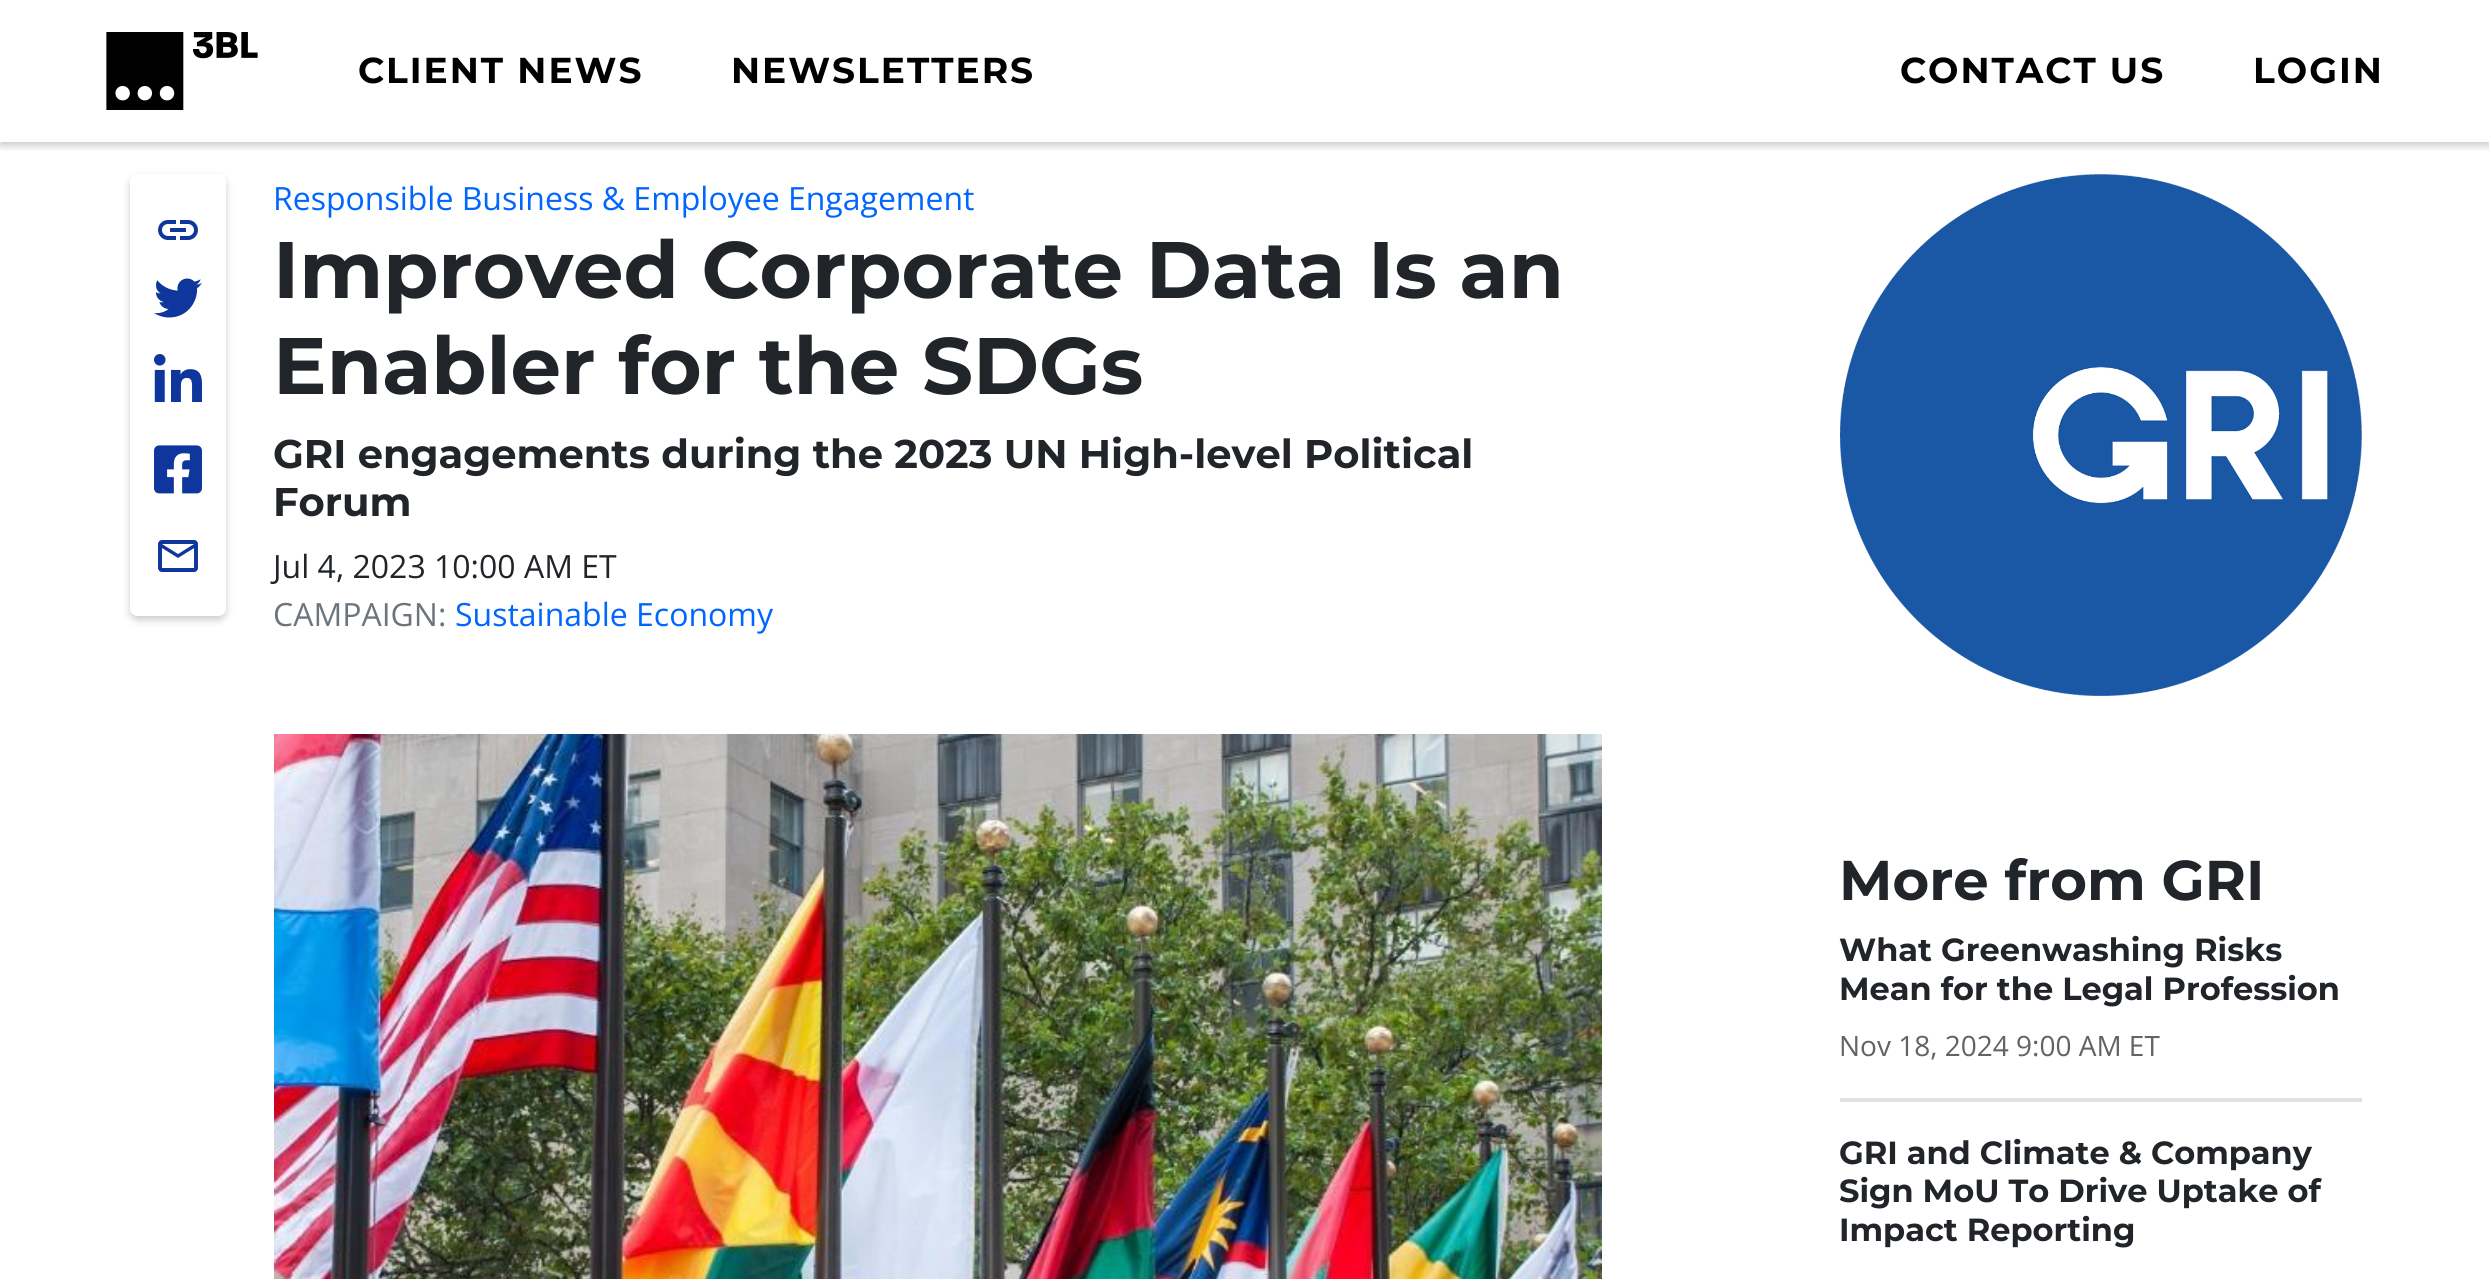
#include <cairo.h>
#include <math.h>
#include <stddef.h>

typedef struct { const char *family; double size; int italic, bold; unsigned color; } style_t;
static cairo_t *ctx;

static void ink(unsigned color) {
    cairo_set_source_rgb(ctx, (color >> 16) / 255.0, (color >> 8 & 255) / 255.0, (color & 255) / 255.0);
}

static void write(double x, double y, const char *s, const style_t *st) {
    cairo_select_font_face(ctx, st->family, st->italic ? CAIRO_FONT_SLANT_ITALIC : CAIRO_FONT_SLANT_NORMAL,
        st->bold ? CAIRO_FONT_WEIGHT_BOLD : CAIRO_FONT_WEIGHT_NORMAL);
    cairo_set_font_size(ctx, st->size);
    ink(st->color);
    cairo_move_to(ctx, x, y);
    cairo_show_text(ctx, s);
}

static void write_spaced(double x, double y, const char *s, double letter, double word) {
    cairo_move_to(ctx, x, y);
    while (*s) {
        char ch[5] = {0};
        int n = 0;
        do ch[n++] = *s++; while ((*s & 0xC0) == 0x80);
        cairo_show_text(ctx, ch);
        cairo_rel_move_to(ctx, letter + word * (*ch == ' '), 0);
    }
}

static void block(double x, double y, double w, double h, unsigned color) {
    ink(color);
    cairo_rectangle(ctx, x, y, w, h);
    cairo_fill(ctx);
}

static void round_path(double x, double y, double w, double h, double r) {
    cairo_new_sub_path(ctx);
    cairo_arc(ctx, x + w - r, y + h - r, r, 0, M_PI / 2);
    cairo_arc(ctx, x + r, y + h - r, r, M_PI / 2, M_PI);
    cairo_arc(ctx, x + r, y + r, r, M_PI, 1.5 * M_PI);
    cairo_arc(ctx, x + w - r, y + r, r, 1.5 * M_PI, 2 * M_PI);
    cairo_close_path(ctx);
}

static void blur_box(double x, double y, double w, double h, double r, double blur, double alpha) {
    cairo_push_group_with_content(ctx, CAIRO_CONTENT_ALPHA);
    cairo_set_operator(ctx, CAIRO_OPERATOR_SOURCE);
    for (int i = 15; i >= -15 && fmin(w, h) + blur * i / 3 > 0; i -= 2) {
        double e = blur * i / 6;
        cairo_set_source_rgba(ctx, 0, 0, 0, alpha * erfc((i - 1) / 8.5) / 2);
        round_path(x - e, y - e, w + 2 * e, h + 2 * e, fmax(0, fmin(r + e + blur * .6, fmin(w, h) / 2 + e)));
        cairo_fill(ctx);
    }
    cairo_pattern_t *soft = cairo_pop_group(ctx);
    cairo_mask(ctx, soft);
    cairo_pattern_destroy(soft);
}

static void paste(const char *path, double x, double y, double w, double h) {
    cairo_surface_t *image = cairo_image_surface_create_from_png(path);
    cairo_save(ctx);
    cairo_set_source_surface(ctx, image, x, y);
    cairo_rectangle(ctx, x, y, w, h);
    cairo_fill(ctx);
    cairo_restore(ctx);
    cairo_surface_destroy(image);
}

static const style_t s1 = {"Open Sans", 32, 0, 0, 0x0066ff};
static const style_t s2 = {"Montserrat", 80, 0, 1, 0x212529};
static const style_t s3 = {"Montserrat", 40, 0, 1, 0x212529};
static const style_t s4 = {"Open Sans", 32, 0, 0, 0x212529};
static const style_t s5 = {"Open Sans", 32, 0, 0, 0x6c757d};
static const style_t s6 = {"Montserrat", 56, 0, 1, 0x212529};
static const style_t s7 = {"Montserrat", 32, 0, 1, 0x212529};
static const style_t s8 = {"Open Sans", 28, 0, 0, 0x636363};

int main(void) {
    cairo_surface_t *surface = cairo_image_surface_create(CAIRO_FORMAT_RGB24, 2489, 1279);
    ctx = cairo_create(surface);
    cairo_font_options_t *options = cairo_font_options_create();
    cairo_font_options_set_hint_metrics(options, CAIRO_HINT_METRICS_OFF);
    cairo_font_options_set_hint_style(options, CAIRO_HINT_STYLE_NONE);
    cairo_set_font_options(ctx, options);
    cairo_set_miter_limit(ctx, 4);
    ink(0xffffff);
    cairo_paint(ctx);
    cairo_save(ctx);
    cairo_rectangle(ctx, 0, 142, 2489, 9);
    cairo_clip(ctx);
    ink(0x000000);
    blur_box(0, 4, 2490, 142, 0, 4, 0.2);
    cairo_restore(ctx);
    paste("pic1.png", 106, 32, 152, 78);
    cairo_select_font_face(ctx, "Montserrat", CAIRO_FONT_SLANT_NORMAL, CAIRO_FONT_WEIGHT_BOLD);
    cairo_set_font_size(ctx, 36);
    ink(0x000000);
    write_spaced(358, 83, "CLIENT NEWS", 2, 0);
    write_spaced(731, 83, "NEWSLETTERS", 2, 0);
    write_spaced(1900, 83, "CONTACT US", 2, 0);
    write_spaced(2253, 83, "LOGIN", 2, 0);
    cairo_save(ctx);
    cairo_set_fill_rule(ctx, CAIRO_FILL_RULE_EVEN_ODD);
    cairo_new_path(ctx);
    cairo_move_to(ctx, 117, 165);
    cairo_line_to(ctx, 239, 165);
    cairo_line_to(ctx, 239, 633);
    cairo_line_to(ctx, 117, 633);
    cairo_close_path(ctx);
    cairo_move_to(ctx, 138, 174);
    cairo_line_to(ctx, 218, 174);
    cairo_curve_to(ctx, 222.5, 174, 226, 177.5, 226, 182);
    cairo_line_to(ctx, 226, 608);
    cairo_curve_to(ctx, 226, 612.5, 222.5, 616, 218, 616);
    cairo_line_to(ctx, 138, 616);
    cairo_curve_to(ctx, 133.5, 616, 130, 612.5, 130, 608);
    cairo_line_to(ctx, 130, 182);
    cairo_curve_to(ctx, 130, 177.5, 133.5, 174, 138, 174);
    cairo_close_path(ctx);
    cairo_clip(ctx);
    ink(0x000000);
    blur_box(130, 178, 96, 442, 8, 4, 0.2);
    cairo_restore(ctx);
    paste("pic2.png", 158, 220, 40, 20);
    paste("pic3.png", 154, 278, 48, 40);
    paste("pic4.png", 154, 354, 48, 48);
    paste("pic5.png", 154, 445, 48, 49);
    paste("pic6.png", 158, 540, 40, 32);
    write(273, 210, "Responsible Business & Employee Engagement", &s1);
    write(273, 298, "Improved Corporate Data Is an", &s2);
    write(273, 394, "Enabler for the SDGs", &s2);
    write(273, 468, "GRI engagements during the 2023 UN High-level Political", &s3);
    write(273, 516, "Forum", &s3);
    write(273, 578, "Jul 4, 2023 10:00 AM ET", &s4);
    write(273, 626, "CAMPAIGN:", &s5);
    write(455, 626, "Sustainable Economy", &s1);
    paste("pic7.png", 274, 734, 1328, 545);
    paste("pic8.png", 1840, 174, 522, 522);
    write(1839, 900, "More from GRI", &s6);
    block(1840, 1098, 522, 4, 0xdee2e6);
    write(1839, 961, "What Greenwashing Risks", &s7);
    write(1839, 1000, "Mean for the Legal Profession", &s7);
    write(1839, 1056, "Nov 18, 2024 9:00 AM ET", &s8);
    write(1839, 1164, "GRI and Climate & Company", &s7);
    write(1839, 1202, "Sign MoU To Drive Uptake of", &s7);
    write(1839, 1241, "Impact Reporting", &s7);
    cairo_surface_write_to_png(surface, "screenshot.png");
    cairo_font_options_destroy(options);
    cairo_destroy(ctx);
    cairo_surface_destroy(surface);
    return 0;
}
